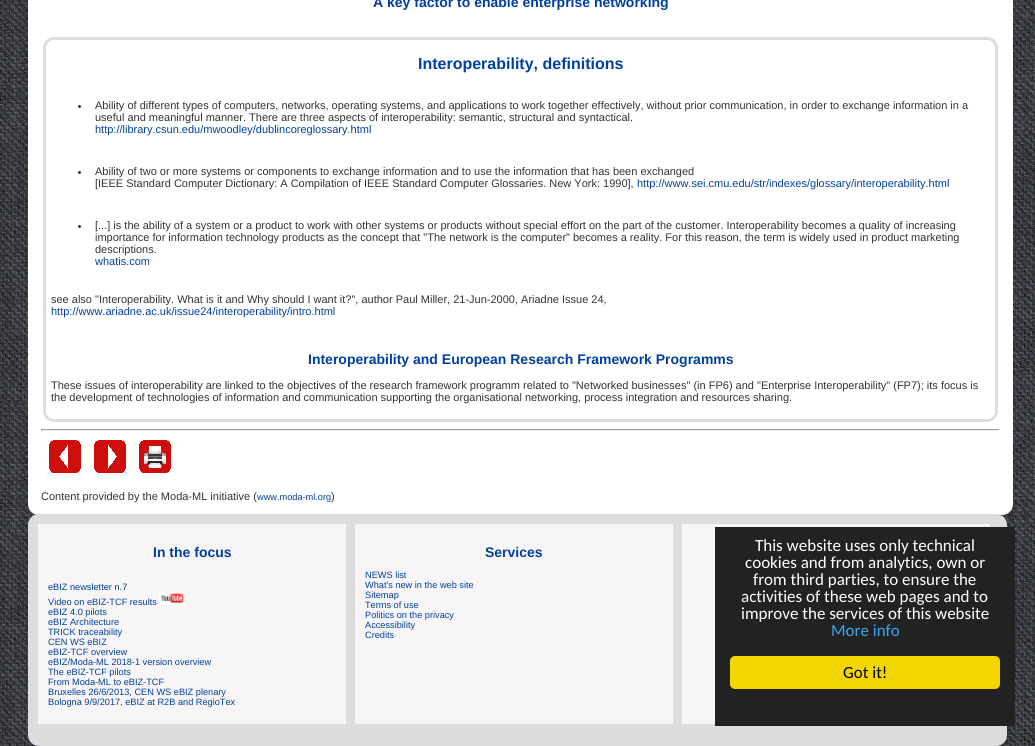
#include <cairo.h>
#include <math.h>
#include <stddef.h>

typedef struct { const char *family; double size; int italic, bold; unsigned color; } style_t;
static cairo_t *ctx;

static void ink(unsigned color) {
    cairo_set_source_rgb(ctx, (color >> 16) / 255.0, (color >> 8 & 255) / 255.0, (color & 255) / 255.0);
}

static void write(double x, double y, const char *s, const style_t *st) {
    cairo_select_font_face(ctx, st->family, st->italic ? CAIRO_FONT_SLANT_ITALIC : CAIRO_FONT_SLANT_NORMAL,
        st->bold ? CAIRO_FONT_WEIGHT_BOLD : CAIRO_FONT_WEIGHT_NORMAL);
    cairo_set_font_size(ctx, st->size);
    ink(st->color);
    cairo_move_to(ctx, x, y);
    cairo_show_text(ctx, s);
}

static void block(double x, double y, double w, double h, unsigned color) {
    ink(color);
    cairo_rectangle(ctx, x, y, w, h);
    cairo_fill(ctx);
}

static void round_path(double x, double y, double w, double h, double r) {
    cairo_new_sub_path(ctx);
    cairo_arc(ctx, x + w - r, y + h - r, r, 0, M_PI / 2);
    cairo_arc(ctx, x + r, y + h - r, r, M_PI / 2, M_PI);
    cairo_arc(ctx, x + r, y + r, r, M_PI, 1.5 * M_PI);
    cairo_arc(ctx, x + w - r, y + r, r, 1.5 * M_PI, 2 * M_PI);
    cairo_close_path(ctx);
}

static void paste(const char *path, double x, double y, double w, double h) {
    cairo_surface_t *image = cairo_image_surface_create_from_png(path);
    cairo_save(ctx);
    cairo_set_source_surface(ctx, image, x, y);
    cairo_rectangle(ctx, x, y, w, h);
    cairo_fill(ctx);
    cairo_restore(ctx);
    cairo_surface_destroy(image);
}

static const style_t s1 = {"Liberation Sans", 14, 0, 1, 0x0040a0};
static const style_t s2 = {"Liberation Sans", 16, 0, 1, 0x0040a0};
static const style_t s3 = {"Liberation Sans", 11, 0, 0, 0x333333};
static const style_t s4 = {"Liberation Sans", 11, 0, 0, 0x0040a0};
static const style_t s5 = {"Liberation Sans", 9.2, 0, 0, 0x0040a0};
static const style_t s6 = {"Carlito", 17, 0, 0, 0xffffff};
static const style_t s7 = {"Carlito", 17, 0, 0, 0x31a8f0};
static const style_t s8 = {"Carlito", 17, 0, 0, 0x000000};

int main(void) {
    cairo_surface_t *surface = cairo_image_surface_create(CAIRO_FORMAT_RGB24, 1035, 746);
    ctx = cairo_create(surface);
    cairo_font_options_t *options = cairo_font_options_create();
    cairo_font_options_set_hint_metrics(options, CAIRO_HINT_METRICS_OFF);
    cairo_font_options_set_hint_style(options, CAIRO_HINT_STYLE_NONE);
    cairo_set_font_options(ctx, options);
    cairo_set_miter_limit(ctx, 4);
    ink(0xffffff);
    cairo_paint(ctx);
    paste("pic1.png", 0, 0, 1035, 746);
    ink(0xffffff);
    round_path(29.5, -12.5, 982, 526, 9.5);
    cairo_fill_preserve(ctx);
    cairo_set_line_width(ctx, 3);
    cairo_stroke(ctx);
    write(373, 7, "A key factor to enable enterprise networking", &s1);
    round_path(44.5, 38.5, 952, 382, 9.5);
    ink(0xdddddd);
    cairo_stroke(ctx);
    write(418, 69, "Interoperability, definitions", &s2);
    ink(0x333333);
    cairo_new_path(ctx);
    cairo_arc(ctx, 79.5, 106.5, 1.5, 0, 2 * M_PI);
    cairo_fill(ctx);
    write(95, 109, "Ability of different types of computers, networks, operating systems, and applications to work together effectively, without prior communication, in order to exchange information in a", &s3);
    write(95, 121, "useful and meaningful manner. There are three aspects of interoperability: semantic, structural and syntactical.", &s3);
    write(95, 133, "http://library.csun.edu/mwoodley/dublincoreglossary.html", &s4);
    ink(0x333333);
    cairo_new_path(ctx);
    cairo_arc(ctx, 79.5, 172.5, 1.5, 0, 2 * M_PI);
    cairo_fill(ctx);
    write(95, 175, "Ability of two or more systems or components to exchange information and to use the information that has been exchanged", &s3);
    write(95, 187, "[IEEE Standard Computer Dictionary: A Compilation of IEEE Standard Computer Glossaries. New York: 1990],", &s3);
    write(637, 187, "http://www.sei.cmu.edu/str/indexes/glossary/interoperability.html", &s4);
    ink(0x333333);
    cairo_new_path(ctx);
    cairo_arc(ctx, 79.5, 226.5, 1.5, 0, 2 * M_PI);
    cairo_fill(ctx);
    write(95, 229, "[...] is the ability of a system or a product to work with other systems or products without special effort on the part of the customer. Interoperability becomes a quality of increasing", &s3);
    write(95, 241, "importance for information technology products as the concept that \"The network is the computer\" becomes a reality. For this reason, the term is widely used in product marketing", &s3);
    write(95, 253, "descriptions.", &s3);
    write(95, 265, "whatis.com", &s4);
    write(51, 303, "see also \"Interoperability. What is it and Why should I want it?\", author Paul Miller, 21-Jun-2000, Ariadne Issue 24,", &s3);
    write(51, 315, "http://www.ariadne.ac.uk/issue24/interoperability/intro.html", &s4);
    write(308, 364, "Interoperability and European Research Framework Programms", &s1);
    write(51, 389, "These issues of interoperability are linked to the objectives of the research framework programm related to \"Networked businesses\" (in FP6) and \"Enterprise Interoperability\" (FP7); its focus is", &s3);
    write(51, 401, "the development of technologies of information and communication supporting the organisational networking, process integration and resources sharing.", &s3);
    block(41, 429, 959, 1, 0x9f9f9f);
    block(999, 429, 1, 2, 0xeeeeee);
    block(41, 430, 959, 1, 0xeeeeee);
    block(41, 429, 1, 2, 0x9f9f9f);
    paste("pic2.png", 49, 440, 32, 33);
    paste("pic3.png", 94, 440, 32, 33);
    paste("pic4.png", 139, 440, 32, 33);
    write(41, 500, "Content provided by the Moda-ML initiative (", &s3);
    write(257, 500, "www.moda-ml.org", &s5);
    write(331, 500, ")", &s3);
    ink(0xdddddd);
    round_path(28, 514, 979, 232, 11);
    cairo_fill(ctx);
    block(38, 524, 308, 200, 0xf7f5f5);
    write(153, 557, "In the focus", &s1);
    write(48, 590, "eBIZ newsletter n.7", &s5);
    write(48, 605, "Video on eBIZ-TCF results", &s5);
    paste("pic5.png", 159, 592, 26, 13);
    write(48, 615, "eBIZ 4.0 pilots", &s5);
    write(48, 625, "eBIZ Architecture", &s5);
    write(48, 635, "TRICK traceability", &s5);
    write(48, 645, "CEN WS eBIZ", &s5);
    write(48, 655, "eBIZ-TCF overview", &s5);
    write(48, 665, "eBIZ/Moda-ML 2018-1 version overview", &s5);
    write(48, 675, "The eBIZ-TCF pilots", &s5);
    write(48, 685, "From Moda-ML to eBIZ-TCF", &s5);
    write(48, 695, "Bruxelles 26/6/2013, CEN WS eBIZ plenary", &s5);
    write(48, 705, "Bologna 9/9/2017, eBIZ at R2B and RegioTex", &s5);
    block(355, 524, 318, 200, 0xf7f5f5);
    write(485, 557, "Services", &s1);
    write(365, 578, "NEWS list", &s5);
    write(365, 588, "What's new in the web site", &s5);
    write(365, 598, "Sitemap", &s5);
    write(365, 608, "Terms of use", &s5);
    write(365, 618, "Politics on the privacy", &s5);
    write(365, 628, "Accessibility", &s5);
    write(365, 638, "Credits", &s5);
    block(682, 524, 308, 200, 0xf7f5f5);
    block(715, 527, 300, 199, 0x222222);
    write(755, 551, "This website uses only technical", &s6);
    write(745, 568, "cookies and from analytics, own or", &s6);
    write(753, 585, "from third parties, to ensure the", &s6);
    write(741, 602, "activities of these web pages and to", &s6);
    write(741, 619, "improve the services of this website", &s6);
    write(831, 636, "More info", &s7);
    ink(0xf1d600);
    round_path(730, 656, 270, 33, 5);
    cairo_fill(ctx);
    write(843, 678, "Got it!", &s8);
    cairo_surface_write_to_png(surface, "screenshot.png");
    cairo_font_options_destroy(options);
    cairo_destroy(ctx);
    cairo_surface_destroy(surface);
    return 0;
}
